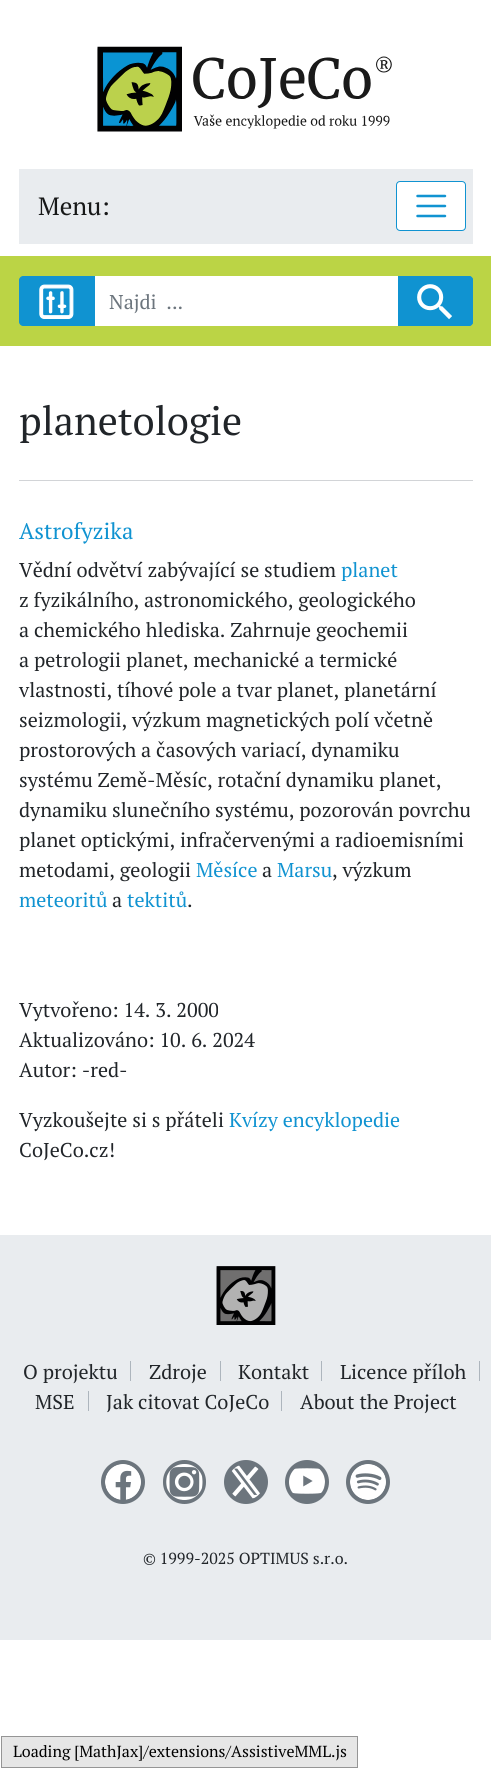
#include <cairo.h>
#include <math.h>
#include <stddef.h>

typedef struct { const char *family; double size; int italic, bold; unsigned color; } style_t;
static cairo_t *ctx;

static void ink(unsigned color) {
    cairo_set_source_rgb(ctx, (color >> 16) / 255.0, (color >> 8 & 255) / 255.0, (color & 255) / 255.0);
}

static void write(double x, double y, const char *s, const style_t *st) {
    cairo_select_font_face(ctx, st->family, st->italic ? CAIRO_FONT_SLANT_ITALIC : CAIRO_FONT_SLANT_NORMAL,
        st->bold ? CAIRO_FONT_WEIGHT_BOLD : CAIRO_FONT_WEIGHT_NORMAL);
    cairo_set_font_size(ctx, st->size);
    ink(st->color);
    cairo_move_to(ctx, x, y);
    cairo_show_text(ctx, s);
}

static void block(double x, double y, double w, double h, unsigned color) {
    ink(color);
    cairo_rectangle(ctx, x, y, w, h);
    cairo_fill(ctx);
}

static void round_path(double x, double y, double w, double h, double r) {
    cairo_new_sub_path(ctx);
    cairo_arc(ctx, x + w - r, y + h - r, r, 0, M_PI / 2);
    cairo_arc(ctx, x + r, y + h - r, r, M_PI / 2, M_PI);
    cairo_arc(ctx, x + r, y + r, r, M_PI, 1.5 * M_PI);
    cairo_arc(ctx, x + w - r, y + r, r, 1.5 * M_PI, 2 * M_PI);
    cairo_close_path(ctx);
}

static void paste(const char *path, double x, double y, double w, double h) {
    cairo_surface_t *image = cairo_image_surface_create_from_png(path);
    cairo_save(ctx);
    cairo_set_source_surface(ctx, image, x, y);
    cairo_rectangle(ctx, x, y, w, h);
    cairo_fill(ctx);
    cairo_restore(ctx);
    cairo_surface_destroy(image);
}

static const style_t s1 = {"PT Serif", 25, 0, 0, 0x171818};
static const style_t s2 = {"PT Serif", 20, 0, 0, 0x6c757d};
static const style_t s3 = {"PT Serif", 40, 0, 0, 0x212529};
static const style_t s4 = {"PT Serif", 22.5, 0, 0, 0x1093d1};
static const style_t s5 = {"PT Serif", 20, 0, 0, 0x212529};
static const style_t s6 = {"PT Serif", 20, 0, 0, 0x1093d1};
static const style_t s7 = {"PT Serif", 16, 0, 0, 0x212529};
static const style_t s8 = {"PT Serif", 16, 0, 0, 0x000000};

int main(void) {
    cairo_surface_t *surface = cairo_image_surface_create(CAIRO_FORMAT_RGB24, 491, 1769);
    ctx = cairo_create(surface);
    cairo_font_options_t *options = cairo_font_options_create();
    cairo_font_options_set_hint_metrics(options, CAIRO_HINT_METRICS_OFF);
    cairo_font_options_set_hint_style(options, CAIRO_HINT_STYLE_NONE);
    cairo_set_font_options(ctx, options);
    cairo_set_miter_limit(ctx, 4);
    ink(0xffffff);
    cairo_paint(ctx);
    paste("pic1.png", 97, 46, 295, 86);
    block(19, 169, 454, 75, 0xe9ecef);
    write(38, 215, "Menu:", &s1);
    ink(0xffffff);
    round_path(396.5, 181.5, 69, 49, 3.5);
    cairo_fill_preserve(ctx);
    ink(0x1093d1);
    cairo_set_line_width(ctx, 1);
    cairo_stroke(ctx);
    cairo_new_path(ctx);
    cairo_move_to(ctx, 417.5, 196);
    cairo_line_to(ctx, 445, 196);
    cairo_move_to(ctx, 417.5, 206);
    cairo_line_to(ctx, 445, 206);
    cairo_move_to(ctx, 417.5, 216);
    cairo_line_to(ctx, 445, 216);
    cairo_set_line_width(ctx, 2.5);
    cairo_set_line_cap(ctx, CAIRO_LINE_CAP_ROUND);
    cairo_stroke(ctx);
    block(0, 256, 491, 90, 0xbbd445);
    ink(0x1093d1);
    cairo_new_path(ctx);
    cairo_move_to(ctx, 23, 276);
    cairo_line_to(ctx, 95, 276);
    cairo_line_to(ctx, 95, 326);
    cairo_line_to(ctx, 23, 326);
    cairo_curve_to(ctx, 21, 326, 19, 324, 19, 322);
    cairo_line_to(ctx, 19, 280);
    cairo_curve_to(ctx, 19, 278, 21, 276, 23, 276);
    cairo_close_path(ctx);
    cairo_fill(ctx);
    paste("pic2.png", 39, 284, 35, 35);
    block(95, 276, 303, 50, 0xffffff);
    write(109, 309, "Najdi  ...", &s2);
    ink(0x1093d1);
    cairo_new_path(ctx);
    cairo_move_to(ctx, 398, 276);
    cairo_line_to(ctx, 469, 276);
    cairo_curve_to(ctx, 471, 276, 473, 278, 473, 280);
    cairo_line_to(ctx, 473, 322);
    cairo_curve_to(ctx, 473, 324, 471, 326, 469, 326);
    cairo_line_to(ctx, 398, 326);
    cairo_close_path(ctx);
    cairo_fill(ctx);
    paste("pic3.png", 417, 284, 35, 36);
    cairo_new_path(ctx);
    cairo_move_to(ctx, 398.5, 276.5);
    cairo_line_to(ctx, 469, 276.5);
    cairo_curve_to(ctx, 471, 276.5, 472.5, 278, 472.5, 280);
    cairo_line_to(ctx, 472.5, 322);
    cairo_curve_to(ctx, 472.5, 324, 471, 325.5, 469, 325.5);
    cairo_line_to(ctx, 398.5, 325.5);
    cairo_close_path(ctx);
    cairo_set_line_width(ctx, 1);
    cairo_set_line_cap(ctx, CAIRO_LINE_CAP_BUTT);
    cairo_stroke(ctx);
    write(19, 435, "planetologie", &s3);
    block(19, 480, 454, 1, 0xd2d4d7);
    write(19, 539, "Astrofyzika", &s4);
    write(19, 577, "Vědní odvětví zabývající se studiem", &s5);
    write(341, 577, "planet", &s6);
    write(19, 607, "z fyzikálního, astronomického, geologického", &s5);
    write(19, 637, "a chemického hlediska. Zahrnuje geochemii", &s5);
    write(19, 667, "a petrologii planet, mechanické a termické", &s5);
    write(19, 697, "vlastnosti, tíhové pole a tvar planet, planetární", &s5);
    write(19, 727, "seizmologii, výzkum magnetických polí včetně", &s5);
    write(19, 757, "prostorových a časových variací, dynamiku", &s5);
    write(19, 787, "systému Země-Měsíc, rotační dynamiku planet,", &s5);
    write(19, 817, "dynamiku slunečního systému, pozorován povrchu", &s5);
    write(19, 847, "planet optickými, infračervenými a radioemisními", &s5);
    write(19, 877, "metodami, geologii", &s5);
    write(196, 877, "Měsíce", &s6);
    write(262, 877, "a", &s5);
    write(277, 877, "Marsu", &s6);
    write(332, 877, ", výzkum", &s5);
    write(19, 907, "meteoritů", &s6);
    write(112, 907, "a", &s5);
    write(127, 907, "tektitů", &s6);
    write(187, 907, ".", &s5);
    write(19, 1017, "Vytvořeno: 14. 3. 2000", &s5);
    write(19, 1047, "Aktualizováno: 10. 6. 2024", &s5);
    write(19, 1077, "Autor: -red-", &s5);
    write(19, 1127, "Vyzkoušejte si s přáteli", &s5);
    write(229, 1127, "Kvízy encyklopedie", &s6);
    write(19, 1157, "CoJeCo.cz!", &s5);
    block(0, 1235, 491, 405, 0xe9ecef);
    paste("pic4.png", 216, 1266, 60, 59);
    block(130, 1361, 1, 20, 0xadb5bd);
    write(23, 1379, "O projektu", &s5);
    block(220, 1361, 1, 20, 0xadb5bd);
    write(149, 1379, "Zdroje", &s5);
    block(321, 1361, 1, 20, 0xadb5bd);
    write(238, 1379, "Kontakt", &s5);
    block(479, 1361, 1, 20, 0xadb5bd);
    write(340, 1379, "Licence příloh", &s5);
    block(88, 1391, 1, 20, 0xadb5bd);
    write(35, 1409, "MSE", &s5);
    block(281, 1391, 1, 20, 0xadb5bd);
    write(106, 1409, "Jak citovat CoJeCo", &s5);
    write(300, 1409, "About the Project", &s5);
    ink(0x6c757d);
    cairo_new_path(ctx);
    cairo_arc(ctx, 123, 1482, 22, 0, 2 * M_PI);
    cairo_fill(ctx);
    round_path(163, 1460, 43, 44, 21.5);
    cairo_fill(ctx);
    cairo_arc(ctx, 246, 1482, 22, 0, 2 * M_PI);
    cairo_fill(ctx);
    cairo_arc(ctx, 307, 1482, 22, 0, 2 * M_PI);
    cairo_fill(ctx);
    cairo_arc(ctx, 368, 1482, 22, 0, 2 * M_PI);
    cairo_fill(ctx);
    paste("pic5.png", 105, 1464, 36, 36);
    paste("pic6.png", 166, 1464, 37, 36);
    paste("pic7.png", 231, 1465, 29, 34);
    paste("pic8.png", 289, 1468, 36, 26);
    paste("pic9.png", 350, 1464, 36, 36);
    write(143, 1564, "© 1999-2025 OPTIMUS s.r.o.", &s7);
    ink(0xe6e6e6);
    cairo_rectangle(ctx, 1.5, 1736.5, 356, 31);
    cairo_fill_preserve(ctx);
    ink(0x959595);
    cairo_stroke(ctx);
    write(13, 1757, "Loading [MathJax]/extensions/AssistiveMML.js", &s8);
    cairo_surface_write_to_png(surface, "screenshot.png");
    cairo_font_options_destroy(options);
    cairo_destroy(ctx);
    cairo_surface_destroy(surface);
    return 0;
}
